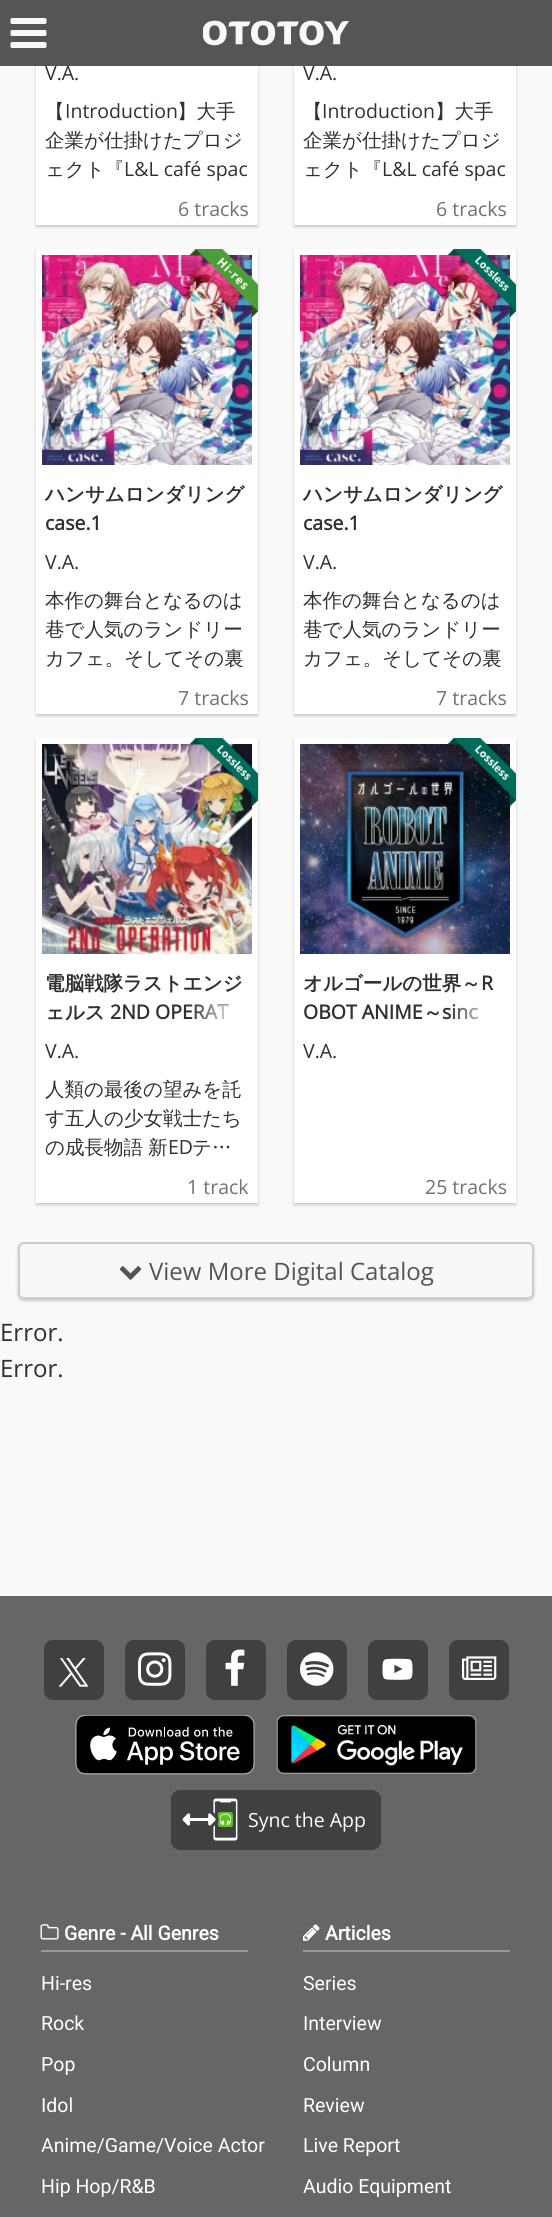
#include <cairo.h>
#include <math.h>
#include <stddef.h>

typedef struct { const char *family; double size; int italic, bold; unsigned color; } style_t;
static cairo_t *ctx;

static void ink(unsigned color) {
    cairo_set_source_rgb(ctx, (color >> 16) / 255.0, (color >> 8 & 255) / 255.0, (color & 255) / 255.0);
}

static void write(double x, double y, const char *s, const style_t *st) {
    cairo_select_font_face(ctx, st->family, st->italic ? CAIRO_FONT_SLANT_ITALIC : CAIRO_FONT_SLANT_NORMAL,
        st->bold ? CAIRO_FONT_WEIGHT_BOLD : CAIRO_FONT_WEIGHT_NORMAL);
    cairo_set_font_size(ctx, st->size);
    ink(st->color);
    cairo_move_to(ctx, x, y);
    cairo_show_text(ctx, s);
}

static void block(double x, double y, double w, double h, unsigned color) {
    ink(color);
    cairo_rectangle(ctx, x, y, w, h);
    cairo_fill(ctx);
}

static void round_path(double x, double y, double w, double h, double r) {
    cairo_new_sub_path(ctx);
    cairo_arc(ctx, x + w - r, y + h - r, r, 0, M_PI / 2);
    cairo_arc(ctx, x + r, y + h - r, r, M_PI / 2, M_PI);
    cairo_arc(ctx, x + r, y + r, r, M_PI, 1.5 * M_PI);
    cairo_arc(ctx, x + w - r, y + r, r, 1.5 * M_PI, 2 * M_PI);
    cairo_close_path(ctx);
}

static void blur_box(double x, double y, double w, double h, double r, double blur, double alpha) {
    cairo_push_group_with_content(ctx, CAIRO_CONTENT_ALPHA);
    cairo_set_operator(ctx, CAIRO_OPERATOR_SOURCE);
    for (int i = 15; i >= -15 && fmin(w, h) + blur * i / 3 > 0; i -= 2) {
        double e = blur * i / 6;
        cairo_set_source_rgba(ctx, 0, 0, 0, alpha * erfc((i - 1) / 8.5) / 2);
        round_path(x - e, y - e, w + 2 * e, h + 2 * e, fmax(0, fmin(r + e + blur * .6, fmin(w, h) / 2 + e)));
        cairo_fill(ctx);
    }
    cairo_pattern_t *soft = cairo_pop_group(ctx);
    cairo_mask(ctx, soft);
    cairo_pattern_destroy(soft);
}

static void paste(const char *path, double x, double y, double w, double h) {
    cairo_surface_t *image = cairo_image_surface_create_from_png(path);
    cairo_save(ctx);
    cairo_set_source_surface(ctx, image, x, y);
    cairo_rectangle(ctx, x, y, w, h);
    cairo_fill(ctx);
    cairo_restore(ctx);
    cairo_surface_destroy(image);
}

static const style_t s1 = {"Open Sans", 19.5, 0, 0, 0x303030};
static const style_t s2 = {"WenQuanYi Zen Hei Medium", 19.5, 0, 0, 0x303030};
static const style_t s3 = {"Open Sans", 19.5, 0, 0, 0x707070};
static const style_t s4 = {"WenQuanYi Zen Hei", 19.5, 0, 1, 0x303030};
static const style_t s5 = {"Open Sans", 19.5, 0, 1, 0x303030};
static const style_t s6 = {"Open Sans", 24, 0, 0, 0x555555};
static const style_t s7 = {"Open Sans", 24, 0, 0, 0x303030};
static const style_t s8 = {"Open Sans", 19.5, 0, 0, 0xffffff};
static const style_t s9 = {"Roboto", 19.5, 0, 1, 0xffffff};
static const style_t s10 = {"Roboto", 19.5, 0, 0, 0xffffff};

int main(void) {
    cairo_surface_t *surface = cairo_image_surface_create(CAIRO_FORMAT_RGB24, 552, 2217);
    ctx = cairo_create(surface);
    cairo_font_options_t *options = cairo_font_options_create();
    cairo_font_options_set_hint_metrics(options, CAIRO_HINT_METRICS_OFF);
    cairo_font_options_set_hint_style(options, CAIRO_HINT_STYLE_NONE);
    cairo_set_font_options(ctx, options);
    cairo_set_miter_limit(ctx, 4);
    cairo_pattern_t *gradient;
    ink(0xf9f9f9);
    cairo_paint(ctx);
    ink(0x000000);
    blur_box(36, -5, 222, 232, 0, 1.5, 0.2);
    block(36, 0, 222, 225, 0xffffff);
    ink(0x000000);
    blur_box(294, -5, 222, 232, 0, 1.5, 0.2);
    block(294, 0, 222, 225, 0xffffff);
    cairo_set_source_rgba(ctx, 0.306, 0.306, 0.306, 0.96);
    cairo_rectangle(ctx, 0, 0, 552, 66);
    cairo_fill(ctx);
    paste("pic1.png", 10, 18, 37, 30);
    paste("pic2.png", 203, 20, 146, 26);
    write(45, 80, "V.A.", &s1);
    write(45, 118, "【", &s2);
    write(65, 118, "Introduction", &s1);
    write(177, 118, "】大手", &s2);
    write(45, 147, "企業が仕掛けたプロジ", &s2);
    write(45, 176, "ェクト『", &s2);
    write(124, 176, "L&L café spac", &s1);
    write(178, 216, "6 tracks", &s3);
    write(303, 80, "V.A.", &s1);
    write(303, 118, "【", &s2);
    write(322, 118, "Introduction", &s1);
    write(435, 118, "】大手", &s2);
    write(303, 147, "企業が仕掛けたプロジ", &s2);
    write(303, 176, "ェクト『", &s2);
    write(382, 176, "L&L café spac", &s1);
    write(436, 216, "6 tracks", &s3);
    ink(0x000000);
    blur_box(36, 251, 222, 465, 0, 1.5, 0.2);
    block(36, 249, 222, 465, 0xffffff);
    paste("pic4.png", 42, 255, 210, 210);
    paste("pic3.png", 189, 249, 69, 69);
    write(45, 501, "ハンサムロンダリング", &s4);
    write(45, 530, "case.1", &s5);
    write(45, 569, "V.A.", &s1);
    write(45, 607, "本作の舞台となるのは", &s2);
    write(45, 636, "巷で人気のランドリー", &s2);
    write(45, 665, "カフェ。そしてその裏", &s2);
    write(178, 705, "7 tracks", &s3);
    ink(0x000000);
    blur_box(294, 251, 222, 465, 0, 1.5, 0.2);
    block(294, 249, 222, 465, 0xffffff);
    paste("pic6.png", 300, 255, 210, 210);
    paste("pic5.png", 447, 249, 69, 69);
    write(303, 501, "ハンサムロンダリング", &s4);
    write(303, 530, "case.1", &s5);
    write(303, 569, "V.A.", &s1);
    write(303, 607, "本作の舞台となるのは", &s2);
    write(303, 636, "巷で人気のランドリー", &s2);
    write(303, 665, "カフェ。そしてその裏", &s2);
    write(436, 705, "7 tracks", &s3);
    ink(0x000000);
    blur_box(36, 740, 222, 465, 0, 1.5, 0.2);
    block(36, 738, 222, 465, 0xffffff);
    paste("pic8.png", 42, 744, 210, 210);
    paste("pic7.png", 189, 738, 69, 69);
    write(45, 990, "電脳戦隊ラストエンジ", &s4);
    write(45, 1019, "ェルス", &s4);
    write(110, 1019, "2ND OPERAT", &s5);
    gradient = cairo_pattern_create_linear(189, 1021, 249, 1021);
    cairo_pattern_add_color_stop_rgba(gradient, 0, 1, 1, 1, 0);
    cairo_pattern_add_color_stop_rgba(gradient, 0.8, 1, 1, 1, 1);
    cairo_set_source(ctx, gradient);
    cairo_pattern_destroy(gradient);
    cairo_rectangle(ctx, 190, 1005, 38, 14);
    cairo_fill(ctx);
    write(45, 1058, "V.A.", &s1);
    write(45, 1096, "人類の最後の望みを託", &s2);
    write(45, 1125, "す五人の少女戦士たち", &s2);
    write(45, 1154, "の成長物語", &s2);
    write(148, 1154, "新", &s2);
    write(168, 1154, "ED", &s1);
    write(192, 1154, "テ…", &s2);
    write(187, 1194, "1 track", &s3);
    ink(0x000000);
    blur_box(294, 740, 222, 465, 0, 1.5, 0.2);
    block(294, 738, 222, 465, 0xffffff);
    paste("pic10.png", 300, 744, 210, 210);
    paste("pic9.png", 447, 738, 69, 69);
    write(303, 990, "オルゴールの世界～", &s4);
    write(481, 990, "R", &s5);
    write(303, 1019, "OBOT ANIME", &s5);
    write(423, 1019, "～", &s4);
    write(442, 1019, "sinc", &s5);
    gradient = cairo_pattern_create_linear(447, 1021, 507, 1021);
    cairo_pattern_add_color_stop_rgba(gradient, 0, 1, 1, 1, 0);
    cairo_pattern_add_color_stop_rgba(gradient, 0.8, 1, 1, 1, 1);
    cairo_set_source(ctx, gradient);
    cairo_pattern_destroy(gradient);
    cairo_rectangle(ctx, 448, 1005, 29, 15);
    cairo_fill(ctx);
    write(303, 1058, "V.A.", &s1);
    write(425, 1194, "25 tracks", &s3);
    ink(0x000000);
    blur_box(18, 1244, 516, 57, 6, 1.5, 0.2);
    ink(0xf7f7f7);
    round_path(19, 1243, 514, 55, 5);
    cairo_fill_preserve(ctx);
    ink(0xcccccc);
    cairo_stroke(ctx);
    paste("pic11.png", 119, 1266, 23, 14);
    write(149, 1280, "View More Digital Catalog", &s6);
    write(0, 1341, "Error.", &s7);
    write(0, 1377, "Error.", &s7);
    block(0, 1596, 552, 621, 0x666666);
    ink(0x404040);
    round_path(44, 1640, 60, 60, 9);
    cairo_fill(ctx);
    paste("pic12.png", 59, 1658, 30, 29);
    round_path(125, 1640, 60, 60, 9);
    cairo_fill(ctx);
    paste("pic13.png", 138, 1652, 34, 34);
    round_path(206, 1640, 60, 60, 9);
    cairo_fill(ctx);
    paste("pic14.png", 225, 1649, 20, 37);
    round_path(287, 1640, 60, 60, 9);
    cairo_fill(ctx);
    paste("pic15.png", 300, 1652, 34, 34);
    round_path(368, 1640, 60, 60, 9);
    cairo_fill(ctx);
    paste("pic16.png", 382, 1658, 31, 22);
    round_path(449, 1640, 60, 60, 9);
    cairo_fill(ctx);
    paste("pic17.png", 462, 1656, 35, 24);
    paste("pic18.png", 75, 1715, 180, 60);
    paste("pic19.png", 276, 1715, 201, 59);
    round_path(171, 1790, 210, 60, 9);
    cairo_fill(ctx);
    paste("pic20.png", 182, 1798, 56, 43);
    write(248, 1827, "Sync the App", &s8);
    block(41, 1950, 207, 2, 0x999999);
    paste("pic21.png", 40, 1924, 19, 16);
    write(64, 1940, "Genre - All Genres", &s9);
    write(41, 1990, "Hi-res", &s10);
    write(41, 2030, "Rock", &s10);
    write(41, 2071, "Pop", &s10);
    write(41, 2112, "Idol", &s10);
    write(41, 2152, "Anime/Game/Voice Actor", &s10);
    write(41, 2193, "Hip Hop/R&B", &s10);
    block(303, 1950, 207, 2, 0x999999);
    paste("pic22.png", 303, 1924, 17, 17);
    write(325, 1940, "Articles", &s9);
    write(303, 1990, "Series", &s10);
    write(303, 2030, "Interview", &s10);
    write(303, 2071, "Column", &s10);
    write(303, 2112, "Review", &s10);
    write(303, 2152, "Live Report", &s10);
    write(303, 2193, "Audio Equipment", &s10);
    cairo_surface_write_to_png(surface, "screenshot.png");
    cairo_font_options_destroy(options);
    cairo_destroy(ctx);
    cairo_surface_destroy(surface);
    return 0;
}
